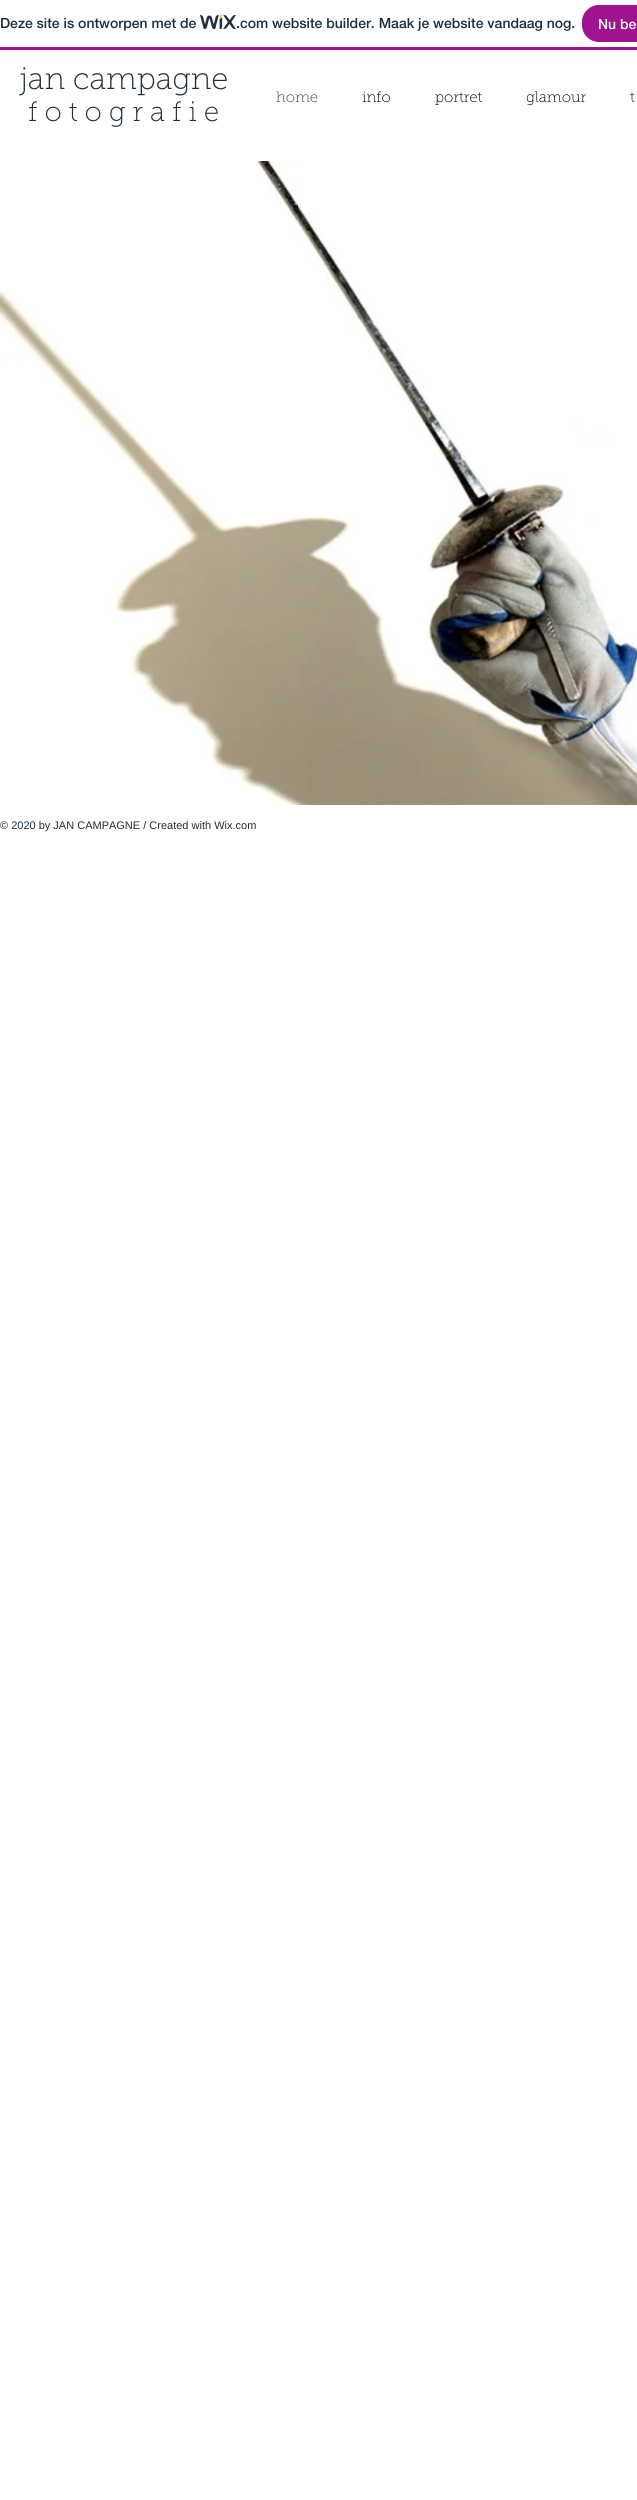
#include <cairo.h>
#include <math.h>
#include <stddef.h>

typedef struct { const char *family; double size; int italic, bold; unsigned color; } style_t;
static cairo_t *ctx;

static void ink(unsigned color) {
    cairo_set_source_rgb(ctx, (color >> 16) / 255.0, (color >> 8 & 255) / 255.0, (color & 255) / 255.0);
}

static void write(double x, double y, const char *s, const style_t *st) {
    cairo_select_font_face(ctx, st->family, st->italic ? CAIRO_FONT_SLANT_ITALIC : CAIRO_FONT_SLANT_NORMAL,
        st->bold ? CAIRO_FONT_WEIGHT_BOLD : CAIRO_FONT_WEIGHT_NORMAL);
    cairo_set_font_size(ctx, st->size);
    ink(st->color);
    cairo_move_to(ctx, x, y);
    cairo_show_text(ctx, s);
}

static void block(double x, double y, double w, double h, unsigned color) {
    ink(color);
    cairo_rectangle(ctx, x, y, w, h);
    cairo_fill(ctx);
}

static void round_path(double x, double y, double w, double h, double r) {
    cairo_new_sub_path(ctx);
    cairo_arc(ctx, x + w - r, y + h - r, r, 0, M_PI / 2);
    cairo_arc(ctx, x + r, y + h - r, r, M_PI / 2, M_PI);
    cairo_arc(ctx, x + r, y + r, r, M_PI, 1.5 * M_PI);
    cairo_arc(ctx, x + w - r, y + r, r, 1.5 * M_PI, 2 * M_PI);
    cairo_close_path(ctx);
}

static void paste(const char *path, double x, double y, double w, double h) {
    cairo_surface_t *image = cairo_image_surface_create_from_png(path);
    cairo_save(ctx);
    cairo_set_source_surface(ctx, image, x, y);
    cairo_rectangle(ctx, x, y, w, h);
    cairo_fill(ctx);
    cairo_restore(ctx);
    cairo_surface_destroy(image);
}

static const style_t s1 = {"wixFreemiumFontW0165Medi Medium", 14, 0, 0, 0x1e2f3b};
static const style_t s2 = {"wixFreemiumFontW0165Medi Medium", 14, 0, 0, 0xffffff};
static const style_t s3 = {"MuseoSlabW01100 Thin", 31, 0, 0, 0x1e2f3b};
static const style_t s4 = {"MuseoSlabW01100 Thin", 28, 0, 0, 0x1e2f3b};
static const style_t s5 = {"MuseoSlabW01100 Thin", 15, 0, 0, 0x39415c};
static const style_t s6 = {"MuseoSlabW01100 Thin", 15, 0, 0, 0x000000};
static const style_t s7 = {"Liberation Sans", 11, 0, 0, 0x1e2f3b};

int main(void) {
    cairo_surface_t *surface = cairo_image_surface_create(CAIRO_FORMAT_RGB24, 637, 2500);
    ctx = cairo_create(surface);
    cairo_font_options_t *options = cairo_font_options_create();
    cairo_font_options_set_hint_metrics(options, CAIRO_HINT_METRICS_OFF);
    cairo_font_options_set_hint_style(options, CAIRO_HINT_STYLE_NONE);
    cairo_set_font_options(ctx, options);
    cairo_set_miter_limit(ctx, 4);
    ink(0xffffff);
    cairo_paint(ctx);
    block(0, 47, 637, 3, 0xa0138e);
    write(0, 28, "Deze site is ontworpen met de", &s1);
    paste("pic1.png", 200, 15, 36, 15);
    write(236, 28, ".com website builder. Maak je website vandaag nog.", &s1);
    ink(0xa0138e);
    round_path(582.5, 5.5, 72, 36, 16.5);
    cairo_fill_preserve(ctx);
    cairo_set_line_width(ctx, 1);
    cairo_stroke(ctx);
    write(598, 29, "Nu be", &s2);
    write(20, 89, "jan campagne", &s3);
    write(28, 121, "f o t o g r a f i e", &s4);
    write(276, 102, "home", &s5);
    write(362, 102, "info", &s6);
    write(435, 102, "portret", &s6);
    write(526, 102, "glamour", &s6);
    write(630, 102, "t", &s6);
    paste("pic2.png", 0, 161, 637, 644);
    write(0, 829, "© 2020 by JAN CAMPAGNE / Created with Wix.com", &s7);
    cairo_surface_write_to_png(surface, "screenshot.png");
    cairo_font_options_destroy(options);
    cairo_destroy(ctx);
    cairo_surface_destroy(surface);
    return 0;
}
